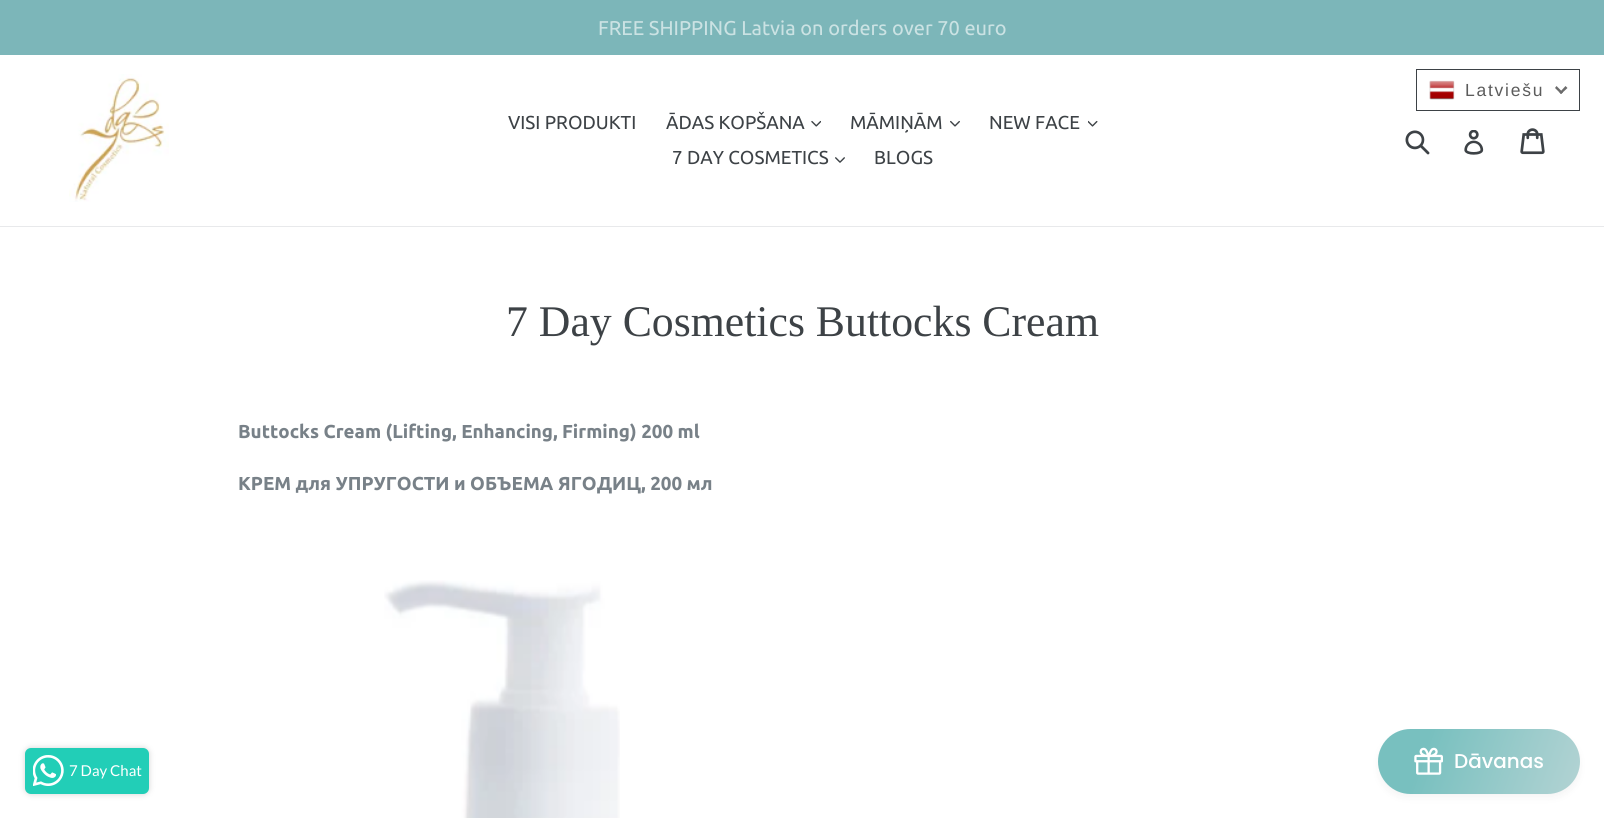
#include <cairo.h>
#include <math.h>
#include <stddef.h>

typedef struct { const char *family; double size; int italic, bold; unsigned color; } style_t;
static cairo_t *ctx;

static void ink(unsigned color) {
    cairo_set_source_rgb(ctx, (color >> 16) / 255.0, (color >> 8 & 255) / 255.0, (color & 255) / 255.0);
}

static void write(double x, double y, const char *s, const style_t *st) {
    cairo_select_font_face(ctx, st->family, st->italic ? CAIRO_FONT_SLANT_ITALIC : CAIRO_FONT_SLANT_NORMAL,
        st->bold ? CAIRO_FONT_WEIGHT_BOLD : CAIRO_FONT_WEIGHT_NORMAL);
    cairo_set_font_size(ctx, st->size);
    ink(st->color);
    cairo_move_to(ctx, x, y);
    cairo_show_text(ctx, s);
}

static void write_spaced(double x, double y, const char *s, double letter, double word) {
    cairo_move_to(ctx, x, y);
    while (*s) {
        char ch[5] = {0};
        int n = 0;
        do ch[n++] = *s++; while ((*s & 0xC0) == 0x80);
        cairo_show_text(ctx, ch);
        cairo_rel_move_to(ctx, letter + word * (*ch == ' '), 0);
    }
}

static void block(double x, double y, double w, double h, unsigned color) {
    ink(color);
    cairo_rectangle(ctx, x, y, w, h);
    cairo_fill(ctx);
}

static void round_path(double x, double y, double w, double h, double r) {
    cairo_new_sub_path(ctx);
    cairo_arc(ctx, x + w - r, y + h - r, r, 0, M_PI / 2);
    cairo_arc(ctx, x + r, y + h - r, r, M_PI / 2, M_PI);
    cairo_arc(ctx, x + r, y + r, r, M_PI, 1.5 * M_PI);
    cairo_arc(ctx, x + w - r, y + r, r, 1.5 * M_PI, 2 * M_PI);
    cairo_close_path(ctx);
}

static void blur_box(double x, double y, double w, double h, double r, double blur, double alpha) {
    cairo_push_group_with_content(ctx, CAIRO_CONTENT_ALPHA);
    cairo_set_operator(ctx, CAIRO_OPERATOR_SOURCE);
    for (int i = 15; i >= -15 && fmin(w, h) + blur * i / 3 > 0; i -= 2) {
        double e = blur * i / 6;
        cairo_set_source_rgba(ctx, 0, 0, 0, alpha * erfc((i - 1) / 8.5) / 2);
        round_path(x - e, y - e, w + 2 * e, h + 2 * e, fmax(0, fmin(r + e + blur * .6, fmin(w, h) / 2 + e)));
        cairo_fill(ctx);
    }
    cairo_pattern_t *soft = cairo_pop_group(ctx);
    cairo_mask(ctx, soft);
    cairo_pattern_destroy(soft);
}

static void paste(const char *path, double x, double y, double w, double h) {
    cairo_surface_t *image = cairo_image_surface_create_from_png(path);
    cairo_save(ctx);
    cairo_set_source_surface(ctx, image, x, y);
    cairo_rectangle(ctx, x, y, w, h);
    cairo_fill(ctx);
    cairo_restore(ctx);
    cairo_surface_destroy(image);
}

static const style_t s1 = {"Ubuntu", 20, 0, 0, 0xcbe2e3};
static const style_t s2 = {"Ubuntu", 18.75, 0, 0, 0x3d4246};
static const style_t s3 = {"Liberation Serif", 43.75, 0, 0, 0x3d4246};
static const style_t s4 = {"Ubuntu", 18.75, 0, 1, 0x788188};
static const style_t s5 = {"Poppins Medium", 20, 0, 0, 0xffffff};
static const style_t s6 = {"Lato", 15, 0, 0, 0xffffff};

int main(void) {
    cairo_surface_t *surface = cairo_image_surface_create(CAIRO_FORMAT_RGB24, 1604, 818);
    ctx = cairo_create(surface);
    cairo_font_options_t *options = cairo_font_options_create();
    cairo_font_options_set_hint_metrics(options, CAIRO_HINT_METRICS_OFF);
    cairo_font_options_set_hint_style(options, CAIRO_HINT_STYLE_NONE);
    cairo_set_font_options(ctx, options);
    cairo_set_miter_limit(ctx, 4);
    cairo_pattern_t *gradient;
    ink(0xffffff);
    cairo_paint(ctx);
    block(0, 0, 1604, 55, 0x7cb6b9);
    write(598, 35, "FREE SHIPPING Latvia on orders over 70 euro", &s1);
    block(0, 226, 1604, 1, 0xe8e9eb);
    paste("pic1.png", 69, 74, 100, 128);
    write(508, 129, "VISI PRODUKTI", &s2);
    write(666, 129, "ĀDAS KOPŠANA", &s2);
    paste("pic2.png", 811, 120, 10, 7);
    write(850, 129, "MĀMIŅĀM", &s2);
    paste("pic3.png", 950, 120, 10, 7);
    write(989, 129, "NEW FACE", &s2);
    paste("pic4.png", 1088, 120, 10, 7);
    write(672, 164, "7 DAY COSMETICS", &s2);
    paste("pic5.png", 835, 157, 10, 6);
    write(874, 164, "BLOGS", &s2);
    paste("pic6.png", 1405, 130, 25, 25);
    paste("pic7.png", 1464, 130, 20, 25);
    paste("pic8.png", 1520, 128, 25, 27);
    cairo_rectangle(ctx, 1416.5, 69.5, 163, 41);
    cairo_set_line_width(ctx, 1);
    cairo_stroke(ctx);
    paste("pic9.png", 1429, 80, 26, 20);
    cairo_select_font_face(ctx, "Liberation Sans", CAIRO_FONT_SLANT_NORMAL, CAIRO_FONT_WEIGHT_NORMAL);
    cairo_set_font_size(ctx, 17.5);
    ink(0x5c5c5c);
    write_spaced(1465, 96, "Latviešu", 1.75, 0);
    ink(0x6c6c6c);
    cairo_new_path(ctx);
    cairo_move_to(ctx, 1565.5, 86);
    cairo_line_to(ctx, 1567.5, 88);
    cairo_line_to(ctx, 1561, 94);
    cairo_line_to(ctx, 1559.5, 92.5);
    cairo_close_path(ctx);
    cairo_fill(ctx);
    cairo_new_path(ctx);
    cairo_move_to(ctx, 1556.5, 86);
    cairo_line_to(ctx, 1563, 92.5);
    cairo_line_to(ctx, 1561, 94);
    cairo_line_to(ctx, 1555, 88);
    cairo_close_path(ctx);
    cairo_fill(ctx);
    write(506, 336, "7 Day Cosmetics Buttocks Cream", &s3);
    write(238, 438, "Buttocks Cream (Lifting, Enhancing, Firming) 200 ml", &s4);
    write(238, 490, "КРЕМ для УПРУГОСТИ и ОБЪЕМА ЯГОДИЦ, 200 мл", &s4);
    paste("pic10.png", 384, 580, 236, 238);
    ink(0x444444);
    blur_box(1380, 736, 198, 60, 30, 5, 0.08);
    gradient = cairo_pattern_create_linear(1379, 726, 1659, 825);
    cairo_pattern_add_color_stop_rgba(gradient, 0.17, 0.471, 0.753, 0.749, 1);
    cairo_pattern_add_color_stop_rgba(gradient, 1, 0.824, 0.867, 0.871, 1);
    cairo_set_source(ctx, gradient);
    cairo_pattern_destroy(gradient);
    round_path(1378, 729, 202, 65, 32.5);
    cairo_fill(ctx);
    paste("pic11.png", 1414, 747, 29, 28);
    write(1454, 768, "Dāvanas", &s5);
    ink(0xd3d3d3);
    blur_box(25, 748, 124, 46, 6, 3, 1);
    ink(0x22ceb7);
    round_path(25, 748, 124, 46, 6);
    cairo_fill(ctx);
    paste("pic12.png", 33, 755, 31, 31);
    write(69, 776, "7 Day Chat", &s6);
    cairo_surface_write_to_png(surface, "screenshot.png");
    cairo_font_options_destroy(options);
    cairo_destroy(ctx);
    cairo_surface_destroy(surface);
    return 0;
}
